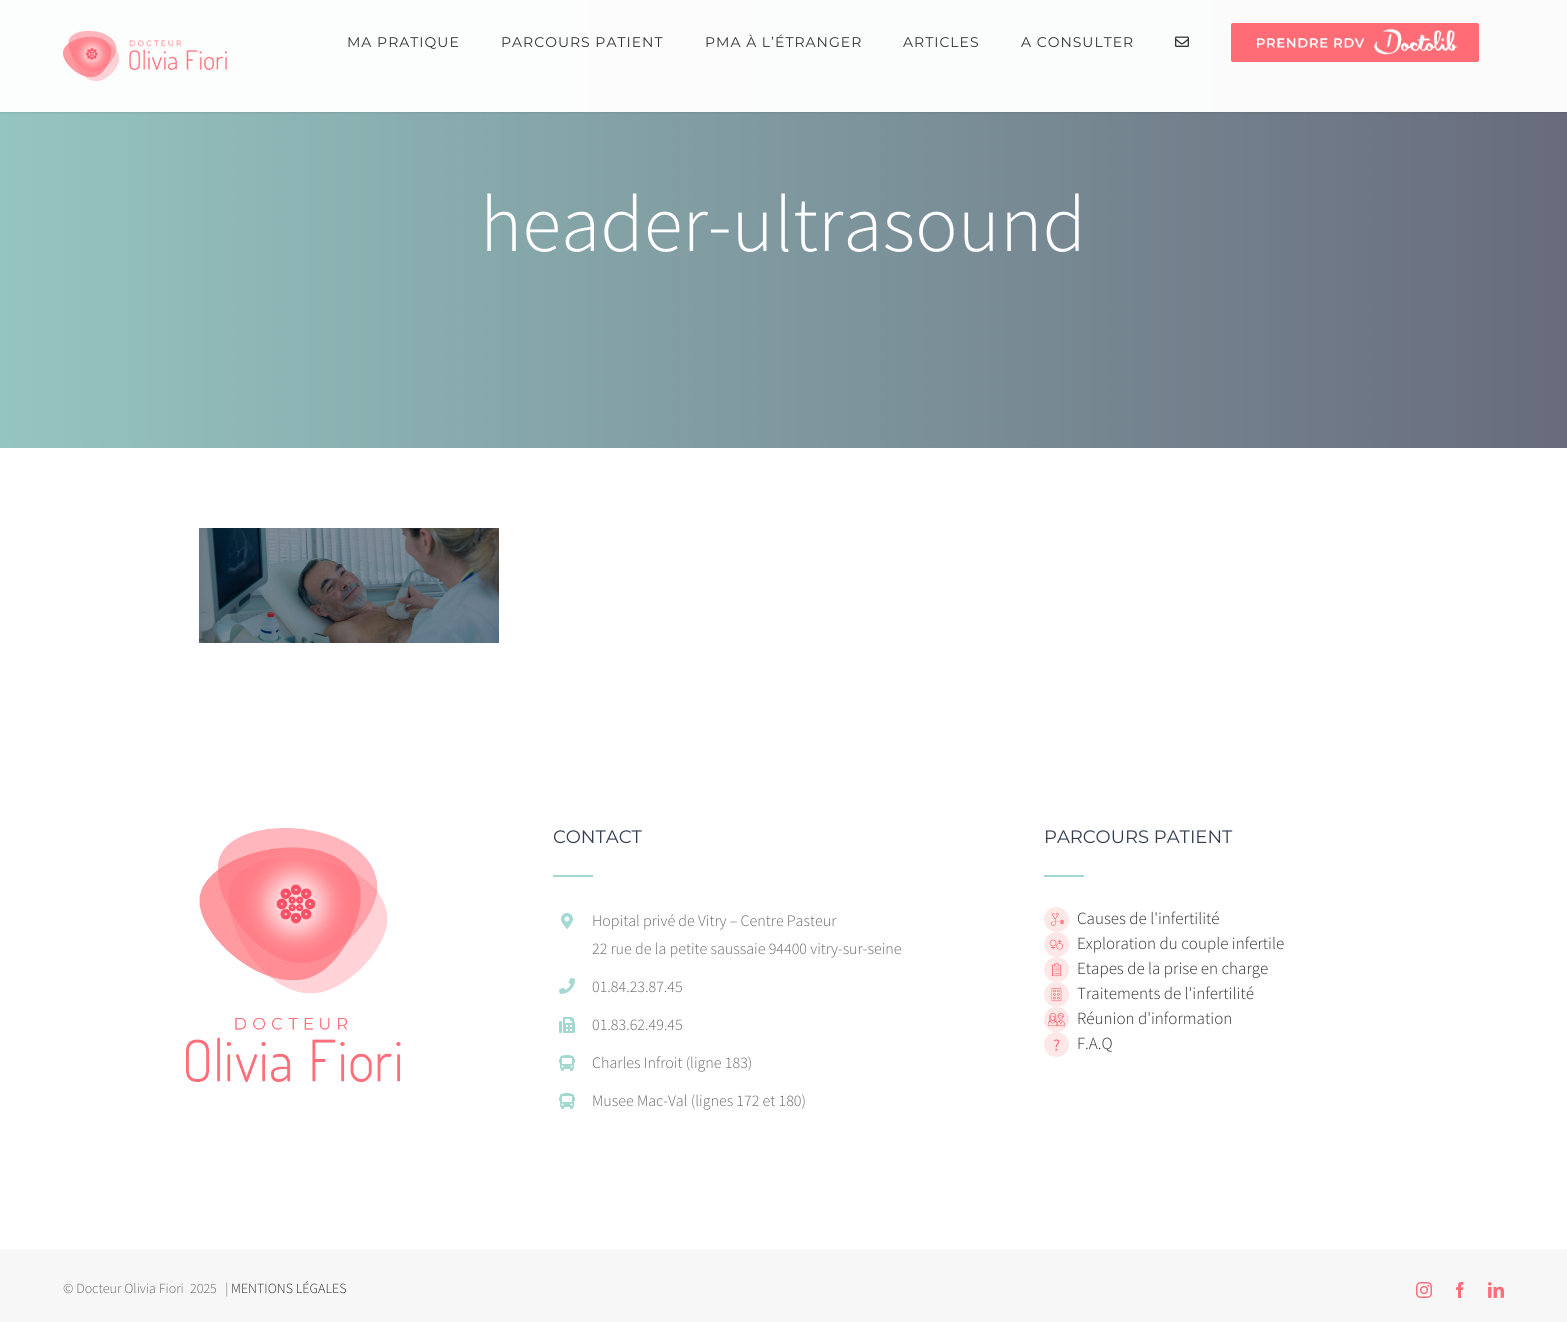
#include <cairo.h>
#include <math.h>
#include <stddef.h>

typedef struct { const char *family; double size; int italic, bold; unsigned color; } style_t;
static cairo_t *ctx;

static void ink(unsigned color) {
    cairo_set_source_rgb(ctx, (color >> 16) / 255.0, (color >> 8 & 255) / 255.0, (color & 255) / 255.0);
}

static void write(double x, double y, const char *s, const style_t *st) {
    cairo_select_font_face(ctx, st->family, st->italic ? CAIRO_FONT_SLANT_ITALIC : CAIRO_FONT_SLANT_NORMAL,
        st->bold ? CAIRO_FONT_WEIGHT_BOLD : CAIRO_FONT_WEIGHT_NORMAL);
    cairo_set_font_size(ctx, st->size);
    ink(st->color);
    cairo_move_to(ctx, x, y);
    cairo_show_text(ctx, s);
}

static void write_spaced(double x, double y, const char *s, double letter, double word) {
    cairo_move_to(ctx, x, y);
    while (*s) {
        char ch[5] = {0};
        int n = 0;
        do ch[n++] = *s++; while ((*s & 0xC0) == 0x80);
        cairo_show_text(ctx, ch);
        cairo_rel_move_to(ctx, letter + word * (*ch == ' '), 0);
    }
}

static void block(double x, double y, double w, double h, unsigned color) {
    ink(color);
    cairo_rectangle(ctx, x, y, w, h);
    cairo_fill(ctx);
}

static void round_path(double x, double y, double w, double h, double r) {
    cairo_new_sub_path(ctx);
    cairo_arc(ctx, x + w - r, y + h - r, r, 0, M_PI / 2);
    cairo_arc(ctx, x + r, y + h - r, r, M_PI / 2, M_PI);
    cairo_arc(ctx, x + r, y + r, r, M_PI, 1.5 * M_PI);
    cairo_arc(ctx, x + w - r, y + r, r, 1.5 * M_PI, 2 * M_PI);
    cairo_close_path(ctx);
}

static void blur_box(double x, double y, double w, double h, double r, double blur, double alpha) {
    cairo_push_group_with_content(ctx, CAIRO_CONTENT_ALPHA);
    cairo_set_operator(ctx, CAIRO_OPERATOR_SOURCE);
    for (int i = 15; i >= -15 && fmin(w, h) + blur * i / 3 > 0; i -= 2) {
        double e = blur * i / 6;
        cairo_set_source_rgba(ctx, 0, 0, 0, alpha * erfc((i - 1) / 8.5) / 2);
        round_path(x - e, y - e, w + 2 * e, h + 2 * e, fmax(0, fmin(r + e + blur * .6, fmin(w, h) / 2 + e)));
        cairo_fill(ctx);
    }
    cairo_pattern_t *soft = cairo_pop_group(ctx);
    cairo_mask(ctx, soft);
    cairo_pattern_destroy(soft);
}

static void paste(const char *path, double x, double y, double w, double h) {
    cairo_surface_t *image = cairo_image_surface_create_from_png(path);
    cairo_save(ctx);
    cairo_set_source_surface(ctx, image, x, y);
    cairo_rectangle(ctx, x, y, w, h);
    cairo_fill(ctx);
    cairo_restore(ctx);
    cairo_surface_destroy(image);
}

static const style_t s1 = {"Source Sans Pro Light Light", 80, 0, 0, 0xffffff};
static const style_t s2 = {"Montserrat", 18, 0, 0, 0x333c4e};
static const style_t s3 = {"Source Sans Pro Light Light", 16, 0, 0, 0x666666};
static const style_t s4 = {"Source Sans Pro Light Light", 17, 0, 0, 0x2b2b2b};
static const style_t s5 = {"Source Sans Pro Light Light", 14, 0, 0, 0x666666};
static const style_t s6 = {"Source Sans Pro Light Light", 14, 0, 0, 0x2b2b2b};

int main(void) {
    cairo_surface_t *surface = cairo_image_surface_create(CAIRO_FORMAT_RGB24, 1567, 1322);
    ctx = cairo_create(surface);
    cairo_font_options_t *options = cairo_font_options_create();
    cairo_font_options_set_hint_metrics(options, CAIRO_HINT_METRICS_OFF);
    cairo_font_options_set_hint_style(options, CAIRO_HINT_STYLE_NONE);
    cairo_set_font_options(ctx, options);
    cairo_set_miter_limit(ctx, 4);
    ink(0xffffff);
    cairo_paint(ctx);
    paste("pic4.png", 0, 0, 1567, 448);
    cairo_save(ctx);
    cairo_rectangle(ctx, 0, 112, 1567, 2);
    cairo_clip(ctx);
    ink(0x000000);
    blur_box(0, 1, 1567, 112, 0, 1.5, 0.12);
    cairo_restore(ctx);
    cairo_set_source_rgba(ctx, 1, 1, 1, 0.97);
    cairo_rectangle(ctx, 0, 0, 1567, 112);
    cairo_fill(ctx);
    paste("pic1.png", 63, 31, 164, 50);
    cairo_select_font_face(ctx, "Montserrat", CAIRO_FONT_SLANT_NORMAL, CAIRO_FONT_WEIGHT_NORMAL);
    cairo_set_font_size(ctx, 14);
    ink(0x333333);
    write_spaced(347, 47, "MA PRATIQUE", 1, 0);
    write_spaced(501, 47, "PARCOURS PATIENT", 1, 0);
    write_spaced(705, 47, "PMA À L’ÉTRANGER", 1, 0);
    write_spaced(903, 47, "ARTICLES", 1, 0);
    write_spaced(1021, 47, "A CONSULTER", 1, 0);
    paste("pic2.png", 1175, 36, 14, 11);
    paste("pic3.png", 1231, 23, 248, 39);
    write(480, 251, "header-ultrasound", &s1);
    paste("pic5.png", 199, 528, 300, 115);
    paste("pic6.png", 186, 828, 215, 254);
    write(553, 843, "CONTACT", &s2);
    block(553, 875, 40, 2, 0xa4d8d0);
    paste("pic7.png", 561, 913, 12, 16);
    write(592, 926, "Hopital privé de Vitry – Centre Pasteur", &s3);
    write(592, 954, "22 rue de la petite saussaie 94400 vitry-sur-seine", &s3);
    paste("pic8.png", 559, 978, 16, 16);
    write(592, 992, "01.84.23.87.45", &s3);
    paste("pic9.png", 559, 1017, 16, 16);
    write(592, 1030, "01.83.62.49.45", &s3);
    paste("pic10.png", 559, 1055, 16, 16);
    write(592, 1068, "Charles Infroit (ligne 183)", &s3);
    paste("pic10.png", 559, 1093, 16, 16);
    write(592, 1106, "Musee Mac-Val (lignes 172 et 180)", &s3);
    write(1044, 843, "PARCOURS PATIENT", &s2);
    block(1044, 875, 40, 2, 0xa4d8d0);
    paste("pic11.png", 1044, 907, 25, 25);
    write(1077, 924, "Causes de l'infertilité", &s4);
    paste("pic12.png", 1044, 932, 25, 25);
    write(1077, 949, "Exploration du couple infertile", &s4);
    paste("pic13.png", 1044, 957, 25, 25);
    write(1077, 974, "Etapes de la prise en charge", &s4);
    paste("pic14.png", 1044, 982, 25, 25);
    write(1077, 999, "Traitements de l'infertilité", &s4);
    paste("pic15.png", 1044, 1007, 25, 25);
    write(1077, 1024, "Réunion d'information", &s4);
    paste("pic16.png", 1044, 1032, 25, 25);
    write(1077, 1049, "F.A.Q", &s4);
    block(0, 1249, 1567, 73, 0xf7f7f7);
    write(63, 1293, "© Docteur Olivia Fiori", &s5);
    write(190, 1293, "2025   |", &s5);
    write(231, 1293, "MENTIONS LÉGALES", &s6);
    paste("pic17.png", 1416, 1282, 16, 16);
    paste("pic18.png", 1456, 1282, 8, 16);
    paste("pic19.png", 1488, 1282, 16, 16);
    cairo_surface_write_to_png(surface, "screenshot.png");
    cairo_font_options_destroy(options);
    cairo_destroy(ctx);
    cairo_surface_destroy(surface);
    return 0;
}
